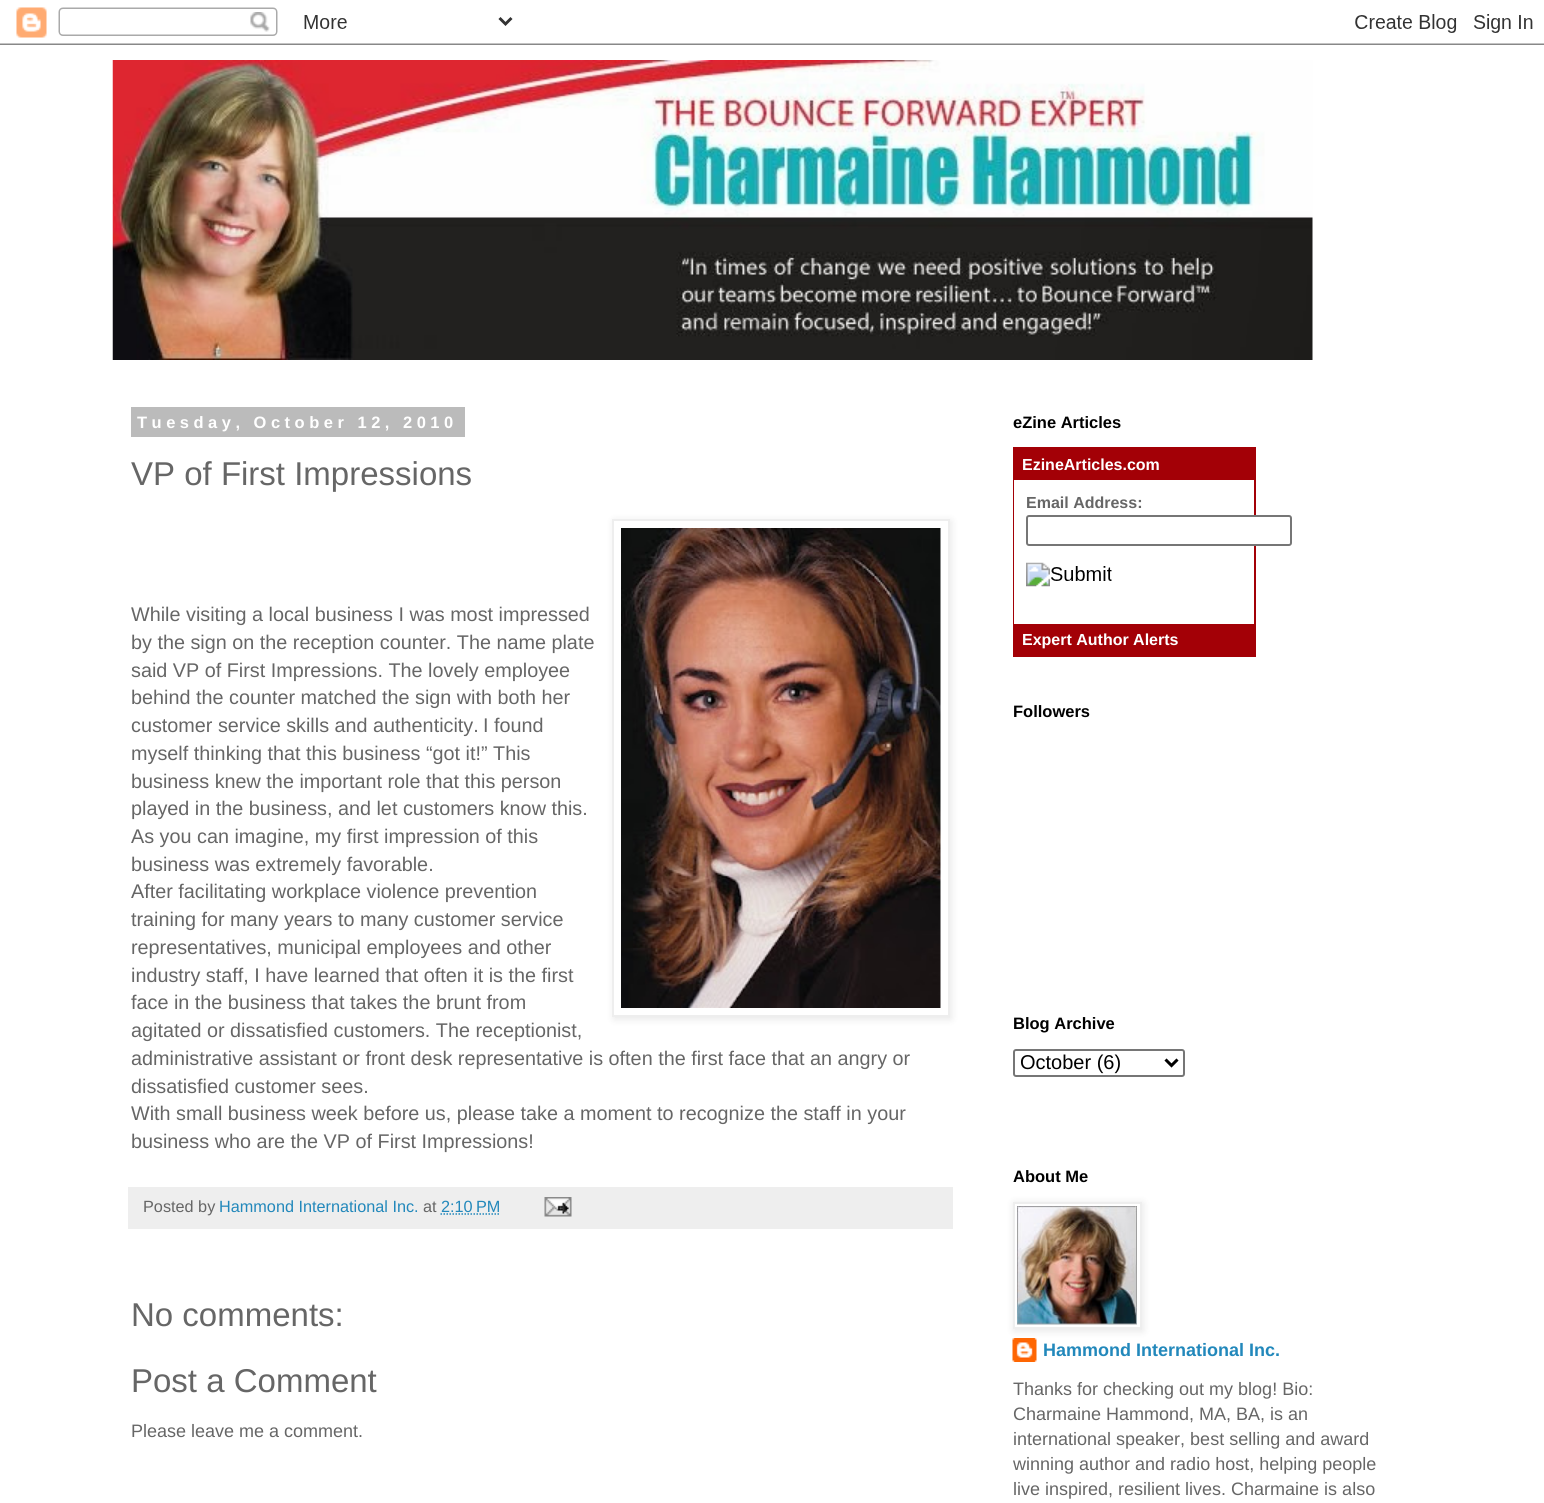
#include <cairo.h>
#include <math.h>
#include <stddef.h>

typedef struct { const char *family; double size; int italic, bold; unsigned color; } style_t;
static cairo_t *ctx;

static void ink(unsigned color) {
    cairo_set_source_rgb(ctx, (color >> 16) / 255.0, (color >> 8 & 255) / 255.0, (color & 255) / 255.0);
}

static void write(double x, double y, const char *s, const style_t *st) {
    cairo_select_font_face(ctx, st->family, st->italic ? CAIRO_FONT_SLANT_ITALIC : CAIRO_FONT_SLANT_NORMAL,
        st->bold ? CAIRO_FONT_WEIGHT_BOLD : CAIRO_FONT_WEIGHT_NORMAL);
    cairo_set_font_size(ctx, st->size);
    ink(st->color);
    cairo_move_to(ctx, x, y);
    cairo_show_text(ctx, s);
}

static void write_spaced(double x, double y, const char *s, double letter, double word) {
    cairo_move_to(ctx, x, y);
    while (*s) {
        char ch[5] = {0};
        int n = 0;
        do ch[n++] = *s++; while ((*s & 0xC0) == 0x80);
        cairo_show_text(ctx, ch);
        cairo_rel_move_to(ctx, letter + word * (*ch == ' '), 0);
    }
}

static void block(double x, double y, double w, double h, unsigned color) {
    ink(color);
    cairo_rectangle(ctx, x, y, w, h);
    cairo_fill(ctx);
}

static void round_path(double x, double y, double w, double h, double r) {
    cairo_new_sub_path(ctx);
    cairo_arc(ctx, x + w - r, y + h - r, r, 0, M_PI / 2);
    cairo_arc(ctx, x + r, y + h - r, r, M_PI / 2, M_PI);
    cairo_arc(ctx, x + r, y + r, r, M_PI, 1.5 * M_PI);
    cairo_arc(ctx, x + w - r, y + r, r, 1.5 * M_PI, 2 * M_PI);
    cairo_close_path(ctx);
}

static void blur_box(double x, double y, double w, double h, double r, double blur, double alpha) {
    cairo_push_group_with_content(ctx, CAIRO_CONTENT_ALPHA);
    cairo_set_operator(ctx, CAIRO_OPERATOR_SOURCE);
    for (int i = 15; i >= -15 && fmin(w, h) + blur * i / 3 > 0; i -= 2) {
        double e = blur * i / 6;
        cairo_set_source_rgba(ctx, 0, 0, 0, alpha * erfc((i - 1) / 8.5) / 2);
        round_path(x - e, y - e, w + 2 * e, h + 2 * e, fmax(0, fmin(r + e + blur * .6, fmin(w, h) / 2 + e)));
        cairo_fill(ctx);
    }
    cairo_pattern_t *soft = cairo_pop_group(ctx);
    cairo_mask(ctx, soft);
    cairo_pattern_destroy(soft);
}

static void paste(const char *path, double x, double y, double w, double h) {
    cairo_surface_t *image = cairo_image_surface_create_from_png(path);
    cairo_save(ctx);
    cairo_set_source_surface(ctx, image, x, y);
    cairo_rectangle(ctx, x, y, w, h);
    cairo_fill(ctx);
    cairo_restore(ctx);
    cairo_surface_destroy(image);
}

static const style_t s1 = {"Liberation Sans", 33, 0, 0, 0x666666};
static const style_t s2 = {"Liberation Sans", 19.8, 0, 0, 0x666666};
static const style_t s3 = {"Liberation Sans", 16.25, 0, 0, 0x666666};
static const style_t s4 = {"Liberation Sans", 16.25, 0, 0, 0x2288bb};
static const style_t s5 = {"Liberation Sans", 18, 0, 0, 0x666666};
static const style_t s6 = {"Liberation Sans", 16.5, 0, 1, 0x000000};
static const style_t s7 = {"Liberation Sans", 16, 0, 1, 0xffffff};
static const style_t s8 = {"Liberation Sans", 16, 0, 1, 0x666666};
static const style_t s9 = {"Liberation Sans", 20, 0, 0, 0x000000};
static const style_t s10 = {"Liberation Sans", 18, 0, 1, 0x2288bb};

int main(void) {
    cairo_surface_t *surface = cairo_image_surface_create(CAIRO_FORMAT_RGB24, 1544, 1503);
    ctx = cairo_create(surface);
    cairo_font_options_t *options = cairo_font_options_create();
    cairo_font_options_set_hint_metrics(options, CAIRO_HINT_METRICS_OFF);
    cairo_font_options_set_hint_style(options, CAIRO_HINT_STYLE_NONE);
    cairo_set_font_options(ctx, options);
    cairo_set_miter_limit(ctx, 4);
    ink(0xffffff);
    cairo_paint(ctx);
    paste("pic1.png", 0, 7, 1544, 38);
    paste("pic2.png", 112, 60, 1201, 300);
    block(131, 407, 334, 30, 0xbbbbbb);
    cairo_select_font_face(ctx, "Liberation Sans", CAIRO_FONT_SLANT_NORMAL, CAIRO_FONT_WEIGHT_BOLD);
    cairo_set_font_size(ctx, 16.5);
    ink(0xffffff);
    write_spaced(137, 428, "Tuesday, October 12, 2010", 4.5, 0);
    write(131, 485, "VP of First Impressions", &s1);
    write(131, 621, "While visiting a local business I was most impressed", &s2);
    ink(0x000000);
    blur_box(614, 521, 337, 498, 0, 4, 0.1);
    ink(0xffffff);
    cairo_rectangle(ctx, 613, 520, 336, 496);
    cairo_fill_preserve(ctx);
    ink(0xeeeeee);
    cairo_stroke(ctx);
    paste("pic3.png", 621, 528, 320, 480);
    write(131, 649, "by the sign on the reception counter. The name plate", &s2);
    write(131, 677, "said VP of First Impressions. The lovely employee", &s2);
    write(131, 704, "behind the counter matched the sign with both her", &s2);
    write(131, 732, "customer service skills and authenticity.", &s2);
    write(483, 732, "I found", &s2);
    write(131, 760, "myself thinking that this business “got it!” This", &s2);
    write(131, 788, "business knew the important role that this person", &s2);
    write(131, 815, "played in the business, and let customers know this.", &s2);
    write(131, 843, "As you can imagine, my first impression of this", &s2);
    write(131, 871, "business was extremely favorable.", &s2);
    write(131, 898, "After facilitating workplace violence prevention", &s2);
    write(131, 926, "training for many years to many customer service", &s2);
    write(131, 954, "representatives, municipal employees and other", &s2);
    write(131, 982, "industry staff, I have learned that often it is the first", &s2);
    write(131, 1009, "face in the business that takes the brunt from", &s2);
    write(131, 1037, "agitated or dissatisfied customers. The receptionist,", &s2);
    write(131, 1065, "administrative assistant or front desk representative is often the first face that an angry or", &s2);
    write(131, 1093, "dissatisfied customer sees.", &s2);
    write(131, 1120, "With small business week before us, please take a moment to recognize the staff in your", &s2);
    write(131, 1148, "business who are the VP of First Impressions!", &s2);
    block(128, 1187, 825, 42, 0xeeeeee);
    write(143, 1212, "Posted by", &s3);
    write(219, 1212, "Hammond International Inc.", &s4);
    write(423, 1212, "at", &s3);
    write(441, 1212, "2:10 PM", &s4);
    cairo_new_path(ctx);
    cairo_move_to(ctx, 440.5, 1214);
    cairo_line_to(ctx, 499.5, 1214);
    cairo_set_line_width(ctx, 1.5);
    cairo_set_dash(ctx, (double[]){1.5, 1.5}, 2, 0);
    cairo_stroke(ctx);
    paste("pic4.png", 544, 1197, 28, 20);
    write(131, 1326, "No comments:", &s1);
    write(131, 1392, "Post a Comment", &s1);
    write(131, 1437, "Please leave me a comment.", &s5);
    write(1013, 428, "eZine Articles", &s6);
    cairo_rectangle(ctx, 1014, 448, 241, 208);
    ink(0xa30006);
    cairo_set_line_width(ctx, 2);
    cairo_set_dash(ctx, NULL, 0, 0);
    cairo_stroke(ctx);
    block(1015, 449, 239, 31, 0xa30006);
    write(1022, 470, "EzineArticles.com", &s7);
    block(1014, 480, 1, 144, 0xffffff);
    write(1026, 508, "Email Address:", &s8);
    ink(0xffffff);
    round_path(1027, 516, 264, 29, 2);
    cairo_fill_preserve(ctx);
    ink(0x767676);
    cairo_stroke(ctx);
    paste("pic5.png", 1026, 562, 86, 25);
    block(1015, 624, 239, 31, 0xa30006);
    write(1022, 645, "Expert Author Alerts", &s7);
    write(1013, 717, "Followers", &s6);
    write(1013, 1029, "Blog Archive", &s6);
    round_path(1014, 1050, 170, 26, 2);
    ink(0x767676);
    cairo_stroke(ctx);
    cairo_new_path(ctx);
    cairo_move_to(ctx, 1165.5, 1059.5);
    cairo_line_to(ctx, 1171.5, 1065.5);
    cairo_line_to(ctx, 1177.5, 1059.5);
    ink(0x000000);
    cairo_set_line_width(ctx, 3);
    cairo_stroke(ctx);
    write(1020, 1069, "October (6)", &s9);
    write(1013, 1182, "About Me", &s6);
    paste("pic7.png", 1012, 1338, 25, 24);
    ink(0x000000);
    blur_box(1014, 1203, 129, 128, 0, 4, 0.1);
    ink(0xffffff);
    cairo_rectangle(ctx, 1014, 1203, 127, 125);
    cairo_fill_preserve(ctx);
    ink(0xeeeeee);
    cairo_set_line_width(ctx, 2);
    cairo_stroke(ctx);
    paste("pic6.png", 1017, 1206, 120, 119);
    write(1043, 1356, "Hammond International Inc.", &s10);
    write(1013, 1395, "Thanks for checking out my blog! Bio:", &s5);
    write(1013, 1420, "Charmaine Hammond, MA, BA, is an", &s5);
    write(1013, 1445, "international speaker, best selling and award", &s5);
    write(1013, 1470, "winning author and radio host, helping people", &s5);
    write(1013, 1495, "live inspired, resilient lives. Charmaine is also", &s5);
    cairo_surface_write_to_png(surface, "screenshot.png");
    cairo_font_options_destroy(options);
    cairo_destroy(ctx);
    cairo_surface_destroy(surface);
    return 0;
}
